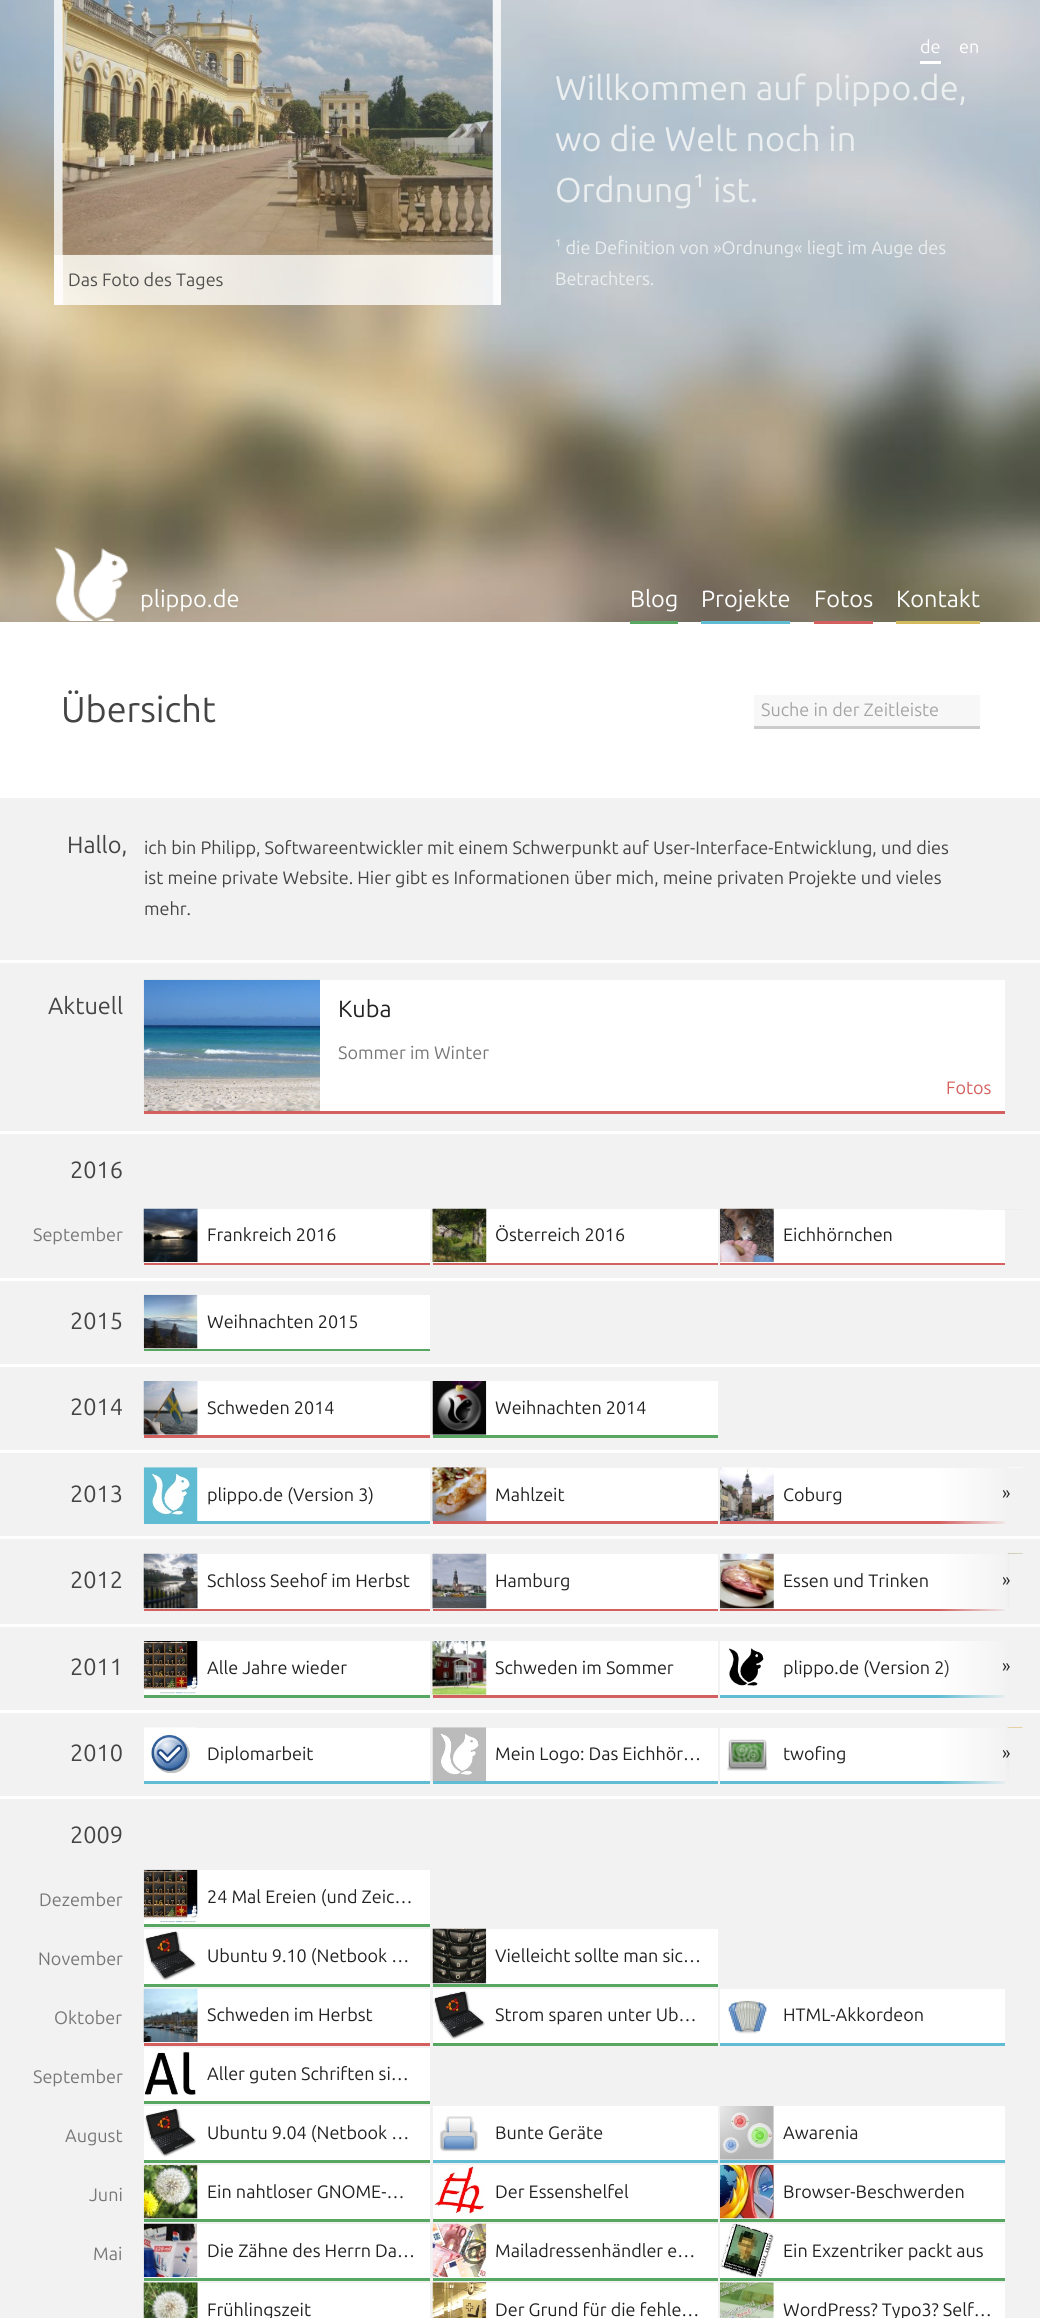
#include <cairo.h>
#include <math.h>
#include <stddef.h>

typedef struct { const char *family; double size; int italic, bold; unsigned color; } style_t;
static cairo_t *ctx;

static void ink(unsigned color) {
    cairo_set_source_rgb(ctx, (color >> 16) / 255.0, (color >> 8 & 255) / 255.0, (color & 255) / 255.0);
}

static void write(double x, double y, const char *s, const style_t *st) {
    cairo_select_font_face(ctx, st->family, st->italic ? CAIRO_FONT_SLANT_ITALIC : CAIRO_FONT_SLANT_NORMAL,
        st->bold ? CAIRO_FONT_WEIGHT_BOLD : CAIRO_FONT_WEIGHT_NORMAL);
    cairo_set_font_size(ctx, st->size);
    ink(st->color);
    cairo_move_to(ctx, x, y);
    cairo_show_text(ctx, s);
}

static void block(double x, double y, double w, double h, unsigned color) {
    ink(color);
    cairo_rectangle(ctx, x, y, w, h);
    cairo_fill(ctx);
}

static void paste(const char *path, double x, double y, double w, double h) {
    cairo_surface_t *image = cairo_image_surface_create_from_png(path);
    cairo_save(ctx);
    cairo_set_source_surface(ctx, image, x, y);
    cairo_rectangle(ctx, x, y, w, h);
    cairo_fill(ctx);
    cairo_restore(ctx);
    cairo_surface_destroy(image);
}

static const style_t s1 = {"Ubuntu", 18, 0, 0, 0xffffff};
static const style_t s2 = {"Ubuntu", 18, 0, 0, 0x51504e};
static const style_t s3 = {"Ubuntu", 34.25, 0, 0, 0xeceff0};
static const style_t s4 = {"Ubuntu", 18, 0, 0, 0xeceff0};
static const style_t s5 = {"Ubuntu", 23.5, 0, 0, 0xffffff};
static const style_t s6 = {"Ubuntu", 36, 0, 0, 0x444444};
static const style_t s7 = {"Ubuntu", 18, 0, 0, 0xa5a5a5};
static const style_t s8 = {"Ubuntu", 23.5, 0, 0, 0x444444};
static const style_t s9 = {"Ubuntu", 18, 0, 0, 0x444444};
static const style_t s10 = {"Ubuntu", 23.5, 0, 0, 0x222222};
static const style_t s11 = {"Ubuntu", 18, 0, 0, 0x777777};
static const style_t s12 = {"Ubuntu", 18, 0, 0, 0xd35f5f};
static const style_t s13 = {"Ubuntu", 18, 0, 0, 0x222222};

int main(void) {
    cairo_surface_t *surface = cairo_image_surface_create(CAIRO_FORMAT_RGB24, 1040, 2318);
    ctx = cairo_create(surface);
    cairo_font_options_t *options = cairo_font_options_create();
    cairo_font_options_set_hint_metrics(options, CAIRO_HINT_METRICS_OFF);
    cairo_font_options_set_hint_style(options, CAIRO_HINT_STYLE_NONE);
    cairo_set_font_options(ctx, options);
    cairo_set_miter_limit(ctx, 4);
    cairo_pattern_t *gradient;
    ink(0xffffff);
    cairo_paint(ctx);
    paste("pic1.png", 0, 0, 1040, 622);
    block(920, 61, 21, 3, 0xffffff);
    write(920, 53, "de", &s1);
    write(959, 53, "en", &s1);
    cairo_set_source_rgba(ctx, 1, 1, 1, 0.77);
    cairo_rectangle(ctx, 493, 0, 8, 305);
    cairo_fill(ctx);
    cairo_rectangle(ctx, 54, 255, 447, 50);
    cairo_fill(ctx);
    cairo_rectangle(ctx, 54, 0, 9, 305);
    cairo_fill(ctx);
    paste("pic2.png", 62, 0, 431, 255);
    write(68, 286, "Das Foto des Tages", &s2);
    write(555, 100, "Willkommen auf plippo.de,", &s3);
    write(555, 151, "wo die Welt noch in", &s3);
    write(555, 202, "Ordnung¹ ist.", &s3);
    write(555, 254, "¹ die Definition von »Ordnung« liegt im Auge des", &s4);
    write(555, 285, "Betrachters.", &s4);
    paste("pic3.png", 54, 547, 74, 74);
    write(140, 607, "plippo.de", &s5);
    block(630, 621, 48, 3, 0x57a662);
    write(630, 607, "Blog", &s5);
    block(701, 621, 89, 3, 0x5fbcd3);
    write(701, 607, "Projekte", &s5);
    block(814, 621, 59, 3, 0xd35f5f);
    write(814, 607, "Fotos", &s5);
    block(896, 621, 84, 3, 0xd3ba5f);
    write(896, 607, "Kontakt", &s5);
    block(754, 695, 226, 31, 0xf7f7f7);
    write(61, 722, "Übersicht", &s6);
    write(761, 716, "Suche in der Zeitleiste", &s7);
    block(754, 726, 226, 3, 0xcccccc);
    block(0, 798, 1040, 162, 0xf2f2f2);
    write(67, 853, "Hallo,", &s8);
    write(144, 854, "ich bin Philipp, Softwareentwickler mit einem Schwerpunkt auf User-Interface-Entwicklung, und dies", &s9);
    write(144, 884, "ist meine private Website. Hier gibt es Informationen über mich, meine privaten Projekte und vieles", &s9);
    write(144, 915, "mehr.", &s9);
    block(0, 963, 1040, 168, 0xf2f2f2);
    write(48, 1014, "Aktuell", &s8);
    block(320, 980, 685, 131, 0xffffff);
    block(144, 1111, 861, 3, 0xd35f5f);
    paste("pic4.png", 143, 979, 177, 132);
    write(338, 1017, "Kuba", &s10);
    write(338, 1059, "Sommer im Winter", &s11);
    write(946, 1094, "Fotos", &s12);
    block(0, 1134, 1040, 144, 0xf2f2f2);
    write(70, 1178, "2016", &s8);
    write(33, 1241, "September", &s11);
    block(720, 1209, 285, 54, 0xffffff);
    gradient = cairo_pattern_create_linear(938, 1178, 1010, 1178);
    cairo_pattern_add_color_stop_rgba(gradient, 0, 0.929, 0.929, 0.929, 0);
    cairo_pattern_add_color_stop_rgba(gradient, 1, 0.929, 0.929, 0.929, 1);
    cairo_set_source(ctx, gradient);
    cairo_pattern_destroy(gradient);
    cairo_rectangle(ctx, 947, 1209, 63, 1);
    cairo_fill(ctx);
    block(1010, 1209, 13, 1, 0xededed);
    block(144, 1209, 286, 54, 0xffffff);
    paste("pic5.png", 143, 1208, 55, 55);
    write(207, 1241, "Frankreich 2016", &s13);
    block(144, 1263, 286, 2, 0xd35f5f);
    block(433, 1209, 285, 54, 0xffffff);
    paste("pic6.png", 432, 1208, 55, 55);
    write(495, 1241, "Österreich 2016", &s13);
    block(433, 1263, 285, 2, 0xd35f5f);
    paste("pic7.png", 720, 1208, 54, 55);
    write(783, 1241, "Eichhörnchen", &s13);
    block(720, 1263, 285, 2, 0xd35f5f);
    block(0, 1281, 1040, 83, 0xf2f2f2);
    write(70, 1329, "2015", &s8);
    block(144, 1295, 286, 54, 0xffffff);
    paste("pic8.png", 143, 1294, 55, 55);
    write(207, 1328, "Weihnachten 2015", &s13);
    block(144, 1349, 286, 2, 0x57a662);
    block(0, 1367, 1040, 83, 0xf2f2f2);
    write(70, 1415, "2014", &s8);
    block(144, 1381, 286, 54, 0xffffff);
    paste("pic9.png", 143, 1381, 55, 54);
    write(207, 1414, "Schweden 2014", &s13);
    block(144, 1435, 286, 3, 0xd35f5f);
    block(433, 1381, 285, 54, 0xffffff);
    paste("pic10.png", 432, 1381, 55, 54);
    write(495, 1414, "Weihnachten 2014", &s13);
    block(433, 1435, 285, 3, 0x57a662);
    block(0, 1453, 1040, 83, 0xf2f2f2);
    write(70, 1502, "2013", &s8);
    block(197, 1468, 233, 53, 0xffffff);
    paste("pic11.png", 143, 1467, 55, 54);
    write(207, 1501, "plippo.de (Version 3)", &s13);
    block(144, 1521, 286, 3, 0x5fbcd3);
    block(486, 1468, 232, 53, 0xffffff);
    paste("pic12.png", 432, 1467, 55, 54);
    write(495, 1501, "Mahlzeit", &s13);
    block(433, 1521, 285, 3, 0xd35f5f);
    block(773, 1468, 232, 53, 0xffffff);
    paste("pic13.png", 720, 1467, 54, 54);
    write(783, 1501, "Coburg", &s13);
    block(720, 1521, 285, 3, 0xd35f5f);
    block(1008, 1511, 2, 10, 0xffffff);
    paste("pic14.png", 1008, 1467, 15, 44);
    block(1008, 1521, 2, 3, 0x57a662);
    gradient = cairo_pattern_create_linear(938, 1496, 1010, 1496);
    cairo_pattern_add_color_stop_rgba(gradient, 0, 0.949, 0.949, 0.949, 0);
    cairo_pattern_add_color_stop_rgba(gradient, 1, 0.949, 0.949, 0.949, 1);
    cairo_set_source(ctx, gradient);
    cairo_pattern_destroy(gradient);
    cairo_rectangle(ctx, 940, 1468, 70, 56);
    cairo_fill(ctx);
    block(1010, 1468, 13, 43, 0xf2f2f2);
    write(1002, 1499, "»", &s13);
    block(0, 1539, 1040, 85, 0xf2f2f2);
    write(70, 1588, "2012", &s8);
    block(144, 1554, 286, 55, 0xffffff);
    paste("pic15.png", 143, 1553, 55, 56);
    write(207, 1587, "Schloss Seehof im Herbst", &s13);
    block(144, 1609, 286, 2, 0xd35f5f);
    block(433, 1554, 285, 55, 0xffffff);
    paste("pic16.png", 432, 1553, 55, 56);
    write(495, 1587, "Hamburg", &s13);
    block(433, 1609, 285, 2, 0xd35f5f);
    block(720, 1554, 285, 55, 0xffffff);
    paste("pic17.png", 720, 1553, 54, 56);
    write(783, 1587, "Essen und Trinken", &s13);
    block(720, 1609, 285, 2, 0xd35f5f);
    block(1008, 1608, 2, 1, 0xffffff);
    paste("pic18.png", 1007, 1553, 16, 56);
    block(1008, 1609, 2, 2, 0x57a662);
    gradient = cairo_pattern_create_linear(938, 1583, 1010, 1583);
    cairo_pattern_add_color_stop_rgba(gradient, 0, 0.949, 0.949, 0.949, 0);
    cairo_pattern_add_color_stop_rgba(gradient, 1, 0.949, 0.949, 0.949, 1);
    cairo_set_source(ctx, gradient);
    cairo_pattern_destroy(gradient);
    cairo_rectangle(ctx, 940, 1554, 70, 57);
    cairo_fill(ctx);
    block(1010, 1554, 13, 55, 0xf2f2f2);
    write(1002, 1586, "»", &s13);
    block(0, 1627, 1040, 83, 0xf2f2f2);
    write(70, 1675, "2011", &s8);
    block(144, 1641, 286, 54, 0xffffff);
    paste("pic19.png", 143, 1641, 55, 53);
    write(207, 1674, "Alle Jahre wieder", &s13);
    block(144, 1695, 286, 3, 0x57a662);
    block(433, 1641, 285, 54, 0xffffff);
    paste("pic20.png", 432, 1641, 55, 54);
    write(495, 1674, "Schweden im Sommer", &s13);
    block(433, 1695, 285, 3, 0xd35f5f);
    block(720, 1641, 285, 54, 0xffffff);
    paste("pic21.png", 728, 1648, 36, 38);
    write(783, 1674, "plippo.de (Version 2)", &s13);
    block(720, 1695, 285, 3, 0x5fbcd3);
    block(1008, 1694, 2, 1, 0xffffff);
    paste("pic22.png", 1007, 1641, 3, 54);
    block(1008, 1695, 2, 3, 0x57a662);
    gradient = cairo_pattern_create_linear(938, 1670, 1010, 1670);
    cairo_pattern_add_color_stop_rgba(gradient, 0, 0.949, 0.949, 0.949, 0);
    cairo_pattern_add_color_stop_rgba(gradient, 1, 0.949, 0.949, 0.949, 1);
    cairo_set_source(ctx, gradient);
    cairo_pattern_destroy(gradient);
    cairo_rectangle(ctx, 940, 1641, 70, 57);
    cairo_fill(ctx);
    write(1002, 1672, "»", &s13);
    block(0, 1713, 1040, 83, 0xf2f2f2);
    write(70, 1761, "2010", &s8);
    block(144, 1728, 286, 53, 0xffffff);
    paste("pic23.png", 144, 1727, 53, 47);
    write(207, 1760, "Diplomarbeit", &s13);
    block(144, 1781, 286, 3, 0x5fbcd3);
    block(486, 1728, 232, 53, 0xffffff);
    paste("pic24.png", 432, 1727, 55, 54);
    write(495, 1760, "Mein Logo: Das Eichhör…", &s13);
    block(433, 1781, 285, 3, 0x5fbcd3);
    block(720, 1728, 285, 53, 0xffffff);
    paste("pic25.png", 727, 1739, 41, 32);
    write(783, 1760, "twofing", &s13);
    block(720, 1781, 285, 3, 0x5fbcd3);
    paste("pic26.png", 1007, 1727, 16, 54);
    block(1008, 1781, 2, 3, 0xd35f5f);
    gradient = cairo_pattern_create_linear(938, 1756, 1010, 1756);
    cairo_pattern_add_color_stop_rgba(gradient, 0, 0.949, 0.949, 0.949, 0);
    cairo_pattern_add_color_stop_rgba(gradient, 1, 0.949, 0.949, 0.949, 1);
    cairo_set_source(ctx, gradient);
    cairo_pattern_destroy(gradient);
    cairo_rectangle(ctx, 940, 1728, 70, 56);
    cairo_fill(ctx);
    block(1010, 1728, 13, 53, 0xf2f2f2);
    write(1002, 1759, "»", &s13);
    block(0, 1799, 1040, 519, 0xf2f2f2);
    write(70, 1843, "2009", &s8);
    write(39, 1906, "Dezember", &s11);
    block(144, 1870, 286, 54, 0xffffff);
    paste("pic27.png", 143, 1869, 55, 54);
    write(207, 1903, "24 Mal Ereien (und Zeic…", &s13);
    block(144, 1924, 286, 3, 0x57a662);
    write(38, 1965, "November", &s11);
    block(144, 1929, 286, 55, 0xffffff);
    paste("pic28.png", 144, 1931, 53, 50);
    write(207, 1962, "Ubuntu 9.10 (Netbook …", &s13);
    block(144, 1984, 286, 3, 0x57a662);
    block(433, 1929, 285, 55, 0xffffff);
    paste("pic29.png", 432, 1928, 55, 56);
    write(495, 1962, "Vielleicht sollte man sic…", &s13);
    block(433, 1984, 285, 3, 0x57a662);
    write(54, 2024, "Oktober", &s11);
    block(144, 1989, 286, 54, 0xffffff);
    paste("pic30.png", 143, 1988, 55, 55);
    write(207, 2021, "Schweden im Herbst", &s13);
    block(144, 2043, 286, 3, 0xd35f5f);
    block(433, 1989, 285, 54, 0xffffff);
    paste("pic31.png", 433, 1991, 52, 48);
    write(495, 2021, "Strom sparen unter Ub…", &s13);
    block(433, 2043, 285, 3, 0x57a662);
    block(720, 1989, 285, 54, 0xffffff);
    paste("pic32.png", 728, 2000, 39, 34);
    write(783, 2021, "HTML-Akkordeon", &s13);
    block(720, 2043, 285, 3, 0x5fbcd3);
    write(33, 2083, "September", &s11);
    block(144, 2048, 286, 53, 0xffffff);
    paste("pic33.png", 144, 2047, 53, 48);
    write(207, 2080, "Aller guten Schriften si…", &s13);
    block(144, 2101, 286, 3, 0x57a662);
    write(65, 2142, "August", &s11);
    block(144, 2106, 286, 54, 0xffffff);
    paste("pic34.png", 144, 2108, 53, 49);
    write(207, 2139, "Ubuntu 9.04 (Netbook …", &s13);
    block(144, 2160, 286, 3, 0x57a662);
    block(433, 2106, 285, 54, 0xffffff);
    paste("pic35.png", 439, 2116, 39, 36);
    write(495, 2139, "Bunte Geräte", &s13);
    block(433, 2160, 285, 3, 0x5fbcd3);
    block(720, 2106, 285, 54, 0xffffff);
    paste("pic36.png", 720, 2106, 54, 54);
    write(783, 2139, "Awarenia", &s13);
    block(720, 2160, 285, 3, 0x5fbcd3);
    write(89, 2201, "Juni", &s11);
    block(144, 2165, 286, 54, 0xffffff);
    paste("pic37.png", 143, 2164, 55, 55);
    write(207, 2198, "Ein nahtloser GNOME-…", &s13);
    block(144, 2219, 286, 3, 0x57a662);
    block(433, 2165, 285, 54, 0xffffff);
    paste("pic38.png", 433, 2165, 52, 51);
    write(495, 2198, "Der Essenshelfel", &s13);
    block(433, 2219, 285, 3, 0x57a662);
    block(720, 2165, 285, 54, 0xffffff);
    paste("pic39.png", 720, 2164, 54, 55);
    write(783, 2198, "Browser-Beschwerden", &s13);
    block(720, 2219, 285, 3, 0x57a662);
    write(93, 2260, "Mai", &s11);
    block(144, 2224, 286, 54, 0xffffff);
    paste("pic40.png", 143, 2223, 55, 55);
    write(207, 2257, "Die Zähne des Herrn Da…", &s13);
    block(144, 2278, 286, 3, 0x57a662);
    block(433, 2224, 285, 54, 0xffffff);
    paste("pic41.png", 432, 2223, 55, 55);
    write(495, 2257, "Mailadressenhändler e…", &s13);
    block(433, 2278, 285, 3, 0x57a662);
    block(720, 2224, 285, 54, 0xffffff);
    paste("pic42.png", 720, 2223, 54, 55);
    write(783, 2257, "Ein Exzentriker packt aus", &s13);
    block(720, 2278, 285, 3, 0x57a662);
    block(197, 2283, 233, 35, 0xffffff);
    paste("pic43.png", 143, 2282, 55, 36);
    write(207, 2316, "Frühlingszeit", &s13);
    block(486, 2283, 232, 35, 0xffffff);
    paste("pic44.png", 432, 2282, 55, 36);
    write(495, 2316, "Der Grund für die fehle…", &s13);
    block(773, 2283, 232, 35, 0xffffff);
    paste("pic45.png", 720, 2282, 54, 36);
    write(783, 2316, "WordPress? Typo3? Self…", &s13);
    cairo_surface_write_to_png(surface, "screenshot.png");
    cairo_font_options_destroy(options);
    cairo_destroy(ctx);
    cairo_surface_destroy(surface);
    return 0;
}
